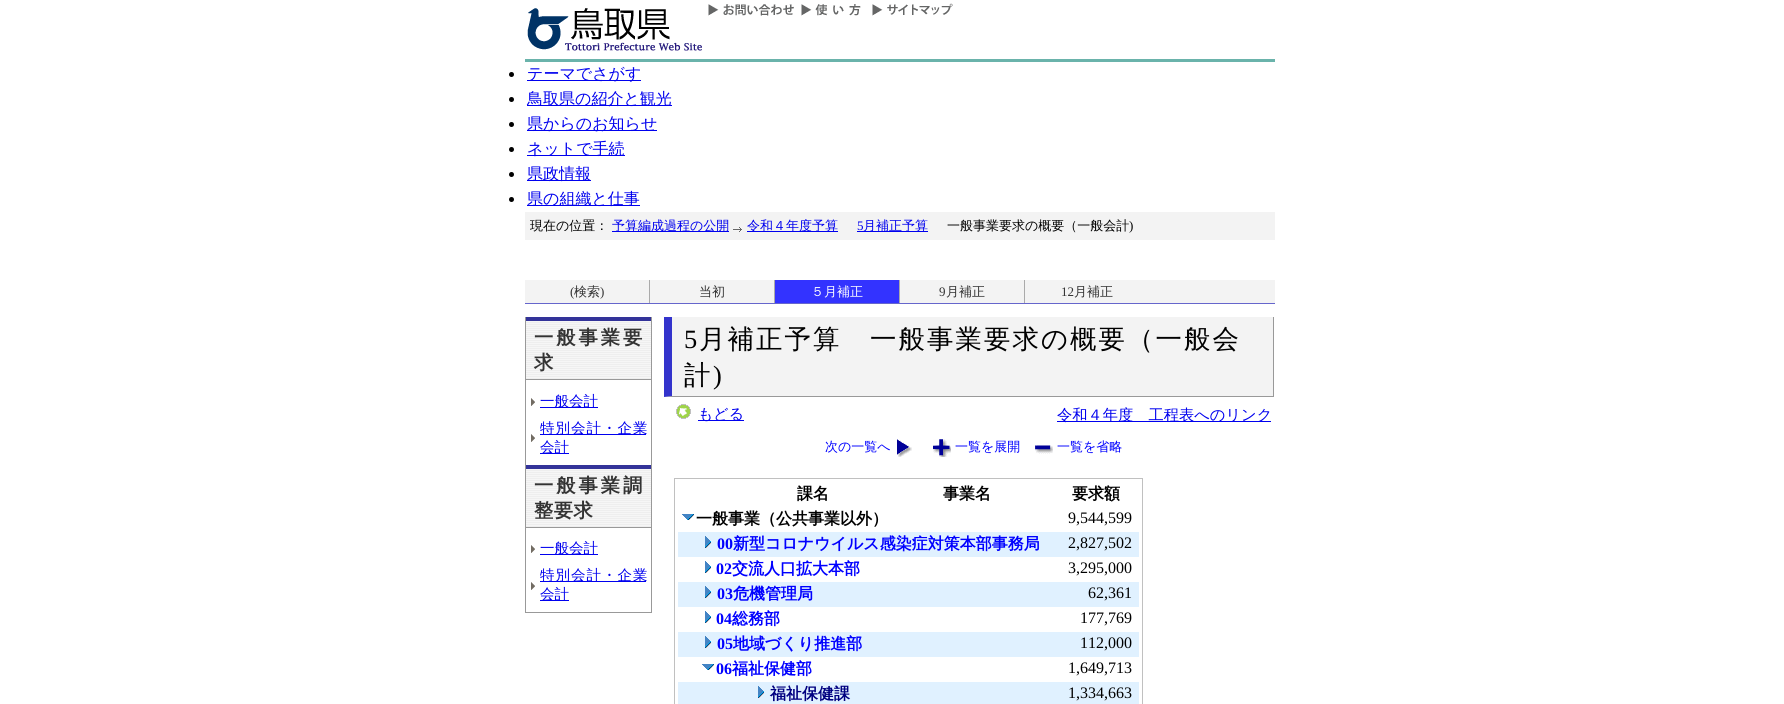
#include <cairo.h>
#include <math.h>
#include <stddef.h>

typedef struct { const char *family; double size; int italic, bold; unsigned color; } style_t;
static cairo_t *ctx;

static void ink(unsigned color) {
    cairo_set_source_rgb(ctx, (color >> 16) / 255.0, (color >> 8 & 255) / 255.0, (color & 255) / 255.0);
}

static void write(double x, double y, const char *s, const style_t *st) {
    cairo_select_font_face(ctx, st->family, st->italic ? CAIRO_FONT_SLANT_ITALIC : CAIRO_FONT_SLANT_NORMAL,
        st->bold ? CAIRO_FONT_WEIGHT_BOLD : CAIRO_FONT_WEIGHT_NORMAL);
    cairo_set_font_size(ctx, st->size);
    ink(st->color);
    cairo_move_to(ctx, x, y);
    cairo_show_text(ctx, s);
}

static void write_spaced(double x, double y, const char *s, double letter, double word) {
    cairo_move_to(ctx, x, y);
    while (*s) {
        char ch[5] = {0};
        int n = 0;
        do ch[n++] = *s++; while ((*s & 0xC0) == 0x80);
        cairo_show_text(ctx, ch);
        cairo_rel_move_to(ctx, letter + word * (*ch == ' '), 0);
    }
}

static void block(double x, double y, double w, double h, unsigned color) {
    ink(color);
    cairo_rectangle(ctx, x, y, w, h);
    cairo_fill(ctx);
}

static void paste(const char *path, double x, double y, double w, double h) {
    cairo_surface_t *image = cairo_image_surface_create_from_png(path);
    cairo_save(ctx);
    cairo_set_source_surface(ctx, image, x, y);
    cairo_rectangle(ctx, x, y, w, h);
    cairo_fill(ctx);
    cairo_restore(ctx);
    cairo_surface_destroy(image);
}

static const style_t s1 = {"WenQuanYi Zen Hei Medium", 16, 0, 0, 0x0000ee};
static const style_t s2 = {"WenQuanYi Zen Hei Medium", 13, 0, 0, 0x000000};
static const style_t s3 = {"WenQuanYi Zen Hei Medium", 13, 0, 0, 0x0000ee};
static const style_t s4 = {"Liberation Serif", 13, 0, 0, 0x0000ee};
static const style_t s5 = {"Liberation Serif", 13, 0, 0, 0x000000};
static const style_t s6 = {"Liberation Serif", 13, 0, 0, 0x333333};
static const style_t s7 = {"WenQuanYi Zen Hei Medium", 13, 0, 0, 0x333333};
static const style_t s8 = {"WenQuanYi Zen Hei Medium", 13, 0, 0, 0xffffff};
static const style_t s9 = {"WenQuanYi Zen Hei Medium", 14.5, 0, 0, 0x0000ee};
static const style_t s10 = {"WenQuanYi Zen Hei Medium", 15, 0, 0, 0x0000ee};
static const style_t s11 = {"WenQuanYi Zen Hei Medium", 15.25, 0, 0, 0x0000ee};
static const style_t s12 = {"WenQuanYi Zen Hei Medium", 13, 0, 0, 0x0000ff};
static const style_t s13 = {"WenQuanYi Zen Hei", 16, 0, 1, 0x000000};
static const style_t s14 = {"Liberation Serif", 16, 0, 0, 0x000000};
static const style_t s15 = {"Liberation Serif", 16, 0, 1, 0x0000ff};
static const style_t s16 = {"WenQuanYi Zen Hei", 16, 0, 1, 0x0000ff};
static const style_t s17 = {"WenQuanYi Zen Hei", 16, 0, 1, 0x000080};

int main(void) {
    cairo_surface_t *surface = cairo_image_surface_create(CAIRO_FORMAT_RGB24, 1784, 704);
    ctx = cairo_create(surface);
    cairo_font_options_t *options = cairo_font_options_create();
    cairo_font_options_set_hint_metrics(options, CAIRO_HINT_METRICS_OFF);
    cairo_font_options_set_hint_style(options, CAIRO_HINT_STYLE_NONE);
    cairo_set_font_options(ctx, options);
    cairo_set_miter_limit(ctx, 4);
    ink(0xffffff);
    cairo_paint(ctx);
    paste("pic1.png", 527, 8, 175, 43);
    paste("pic2.png", 708, 4, 86, 12);
    paste("pic3.png", 801, 4, 60, 12);
    paste("pic4.png", 872, 3, 81, 13);
    block(525, 59, 750, 3, 0x6ab3ab);
    ink(0x000000);
    cairo_arc(ctx, 511.5, 74.5, 2.5, 0, 2 * M_PI);
    cairo_fill(ctx);
    block(527, 80, 114, 1, 0x0000ee);
    write(527, 79, "テーマでさがす", &s1);
    ink(0x000000);
    cairo_new_path(ctx);
    cairo_arc(ctx, 511.5, 99.5, 2.5, 0, 2 * M_PI);
    cairo_fill(ctx);
    block(527, 105, 145, 1, 0x0000ee);
    write(527, 104, "鳥取県の紹介と観光", &s1);
    ink(0x000000);
    cairo_new_path(ctx);
    cairo_arc(ctx, 511.5, 124.5, 2.5, 0, 2 * M_PI);
    cairo_fill(ctx);
    block(527, 130, 130, 1, 0x0000ee);
    write(527, 129, "県からのお知らせ", &s1);
    ink(0x000000);
    cairo_new_path(ctx);
    cairo_arc(ctx, 511.5, 149.5, 2.5, 0, 2 * M_PI);
    cairo_fill(ctx);
    block(527, 155, 98, 1, 0x0000ee);
    write(527, 154, "ネットで手続", &s1);
    ink(0x000000);
    cairo_new_path(ctx);
    cairo_arc(ctx, 511.5, 174.5, 2.5, 0, 2 * M_PI);
    cairo_fill(ctx);
    block(527, 180, 64, 1, 0x0000ee);
    write(527, 179, "県政情報", &s1);
    ink(0x000000);
    cairo_new_path(ctx);
    cairo_arc(ctx, 511.5, 199.5, 2.5, 0, 2 * M_PI);
    cairo_fill(ctx);
    block(527, 205, 113, 1, 0x0000ee);
    write(527, 204, "県の組織と仕事", &s1);
    block(525, 212, 750, 28, 0xf3f3f3);
    write(530, 230, "現在の位置：", &s2);
    block(612, 231, 117, 1, 0x0000ee);
    write(612, 230, "予算編成過程の公開", &s3);
    paste("pic5.png", 733, 227, 9, 5);
    block(747, 231, 91, 1, 0x0000ee);
    write(747, 230, "令和４年度予算", &s3);
    write(857, 230, "5", &s4);
    block(857, 231, 71, 1, 0x0000ee);
    write(863, 230, "月補正予算", &s3);
    write(947, 230, "一般事業要求の概要（一般会計", &s2);
    write(1129, 230, ")", &s5);
    block(525, 280, 750, 23, 0xf3f3f3);
    block(525, 303, 750, 1, 0x6666cc);
    write(570, 296, "(", &s6);
    write(574, 296, "検索", &s7);
    write(600, 296, ")", &s6);
    block(649, 280, 1, 23, 0xaaaaaa);
    write(699, 296, "当初", &s7);
    block(774, 280, 1, 23, 0xaaaaaa);
    block(775, 280, 124, 23, 0x3333ff);
    write(811, 296, "５月補正", &s8);
    block(899, 280, 1, 23, 0xaaaaaa);
    write(939, 296, "9", &s6);
    write(946, 296, "月補正", &s7);
    block(1024, 280, 1, 23, 0xaaaaaa);
    write(1061, 296, "12", &s6);
    write(1074, 296, "月補正", &s7);
    block(651, 317, 1, 296, 0x999999);
    block(525, 612, 127, 1, 0x999999);
    block(525, 317, 1, 296, 0x999999);
    paste("pic6.png", 526, 321, 125, 58);
    block(526, 317, 125, 4, 0x333399);
    block(526, 379, 125, 1, 0x999999);
    cairo_select_font_face(ctx, "WenQuanYi Zen Hei", CAIRO_FONT_SLANT_NORMAL, CAIRO_FONT_WEIGHT_BOLD);
    cairo_set_font_size(ctx, 19.25);
    ink(0x333333);
    write_spaced(534, 344, "一般事業要", 3, 0);
    write_spaced(534, 369, "求", 0.5, 0);
    paste("pic7.png", 531, 398, 4, 8);
    block(540, 407, 58, 1, 0x0000ee);
    write(540, 406, "一般会計", &s9);
    paste("pic7.png", 531, 434, 4, 8);
    block(540, 434, 106, 1, 0x0000ee);
    write_spaced(540, 433, "特別会計・企業", 1, 0);
    block(540, 453, 29, 1, 0x0000ee);
    write(540, 452, "会計", &s9);
    paste("pic6.png", 526, 469, 125, 58);
    block(526, 465, 125, 4, 0x333399);
    block(526, 527, 125, 1, 0x999999);
    cairo_select_font_face(ctx, "WenQuanYi Zen Hei", CAIRO_FONT_SLANT_NORMAL, CAIRO_FONT_WEIGHT_BOLD);
    cairo_set_font_size(ctx, 19.25);
    ink(0x333333);
    write_spaced(534, 492, "一般事業調", 3, 0);
    write_spaced(534, 517, "整要求", 0.5, 0);
    paste("pic7.png", 531, 545, 4, 8);
    block(540, 554, 58, 1, 0x0000ee);
    write(540, 553, "一般会計", &s9);
    paste("pic7.png", 531, 582, 4, 8);
    block(540, 581, 106, 1, 0x0000ee);
    write_spaced(540, 580, "特別会計・企業", 1, 0);
    block(540, 600, 29, 1, 0x0000ee);
    write(540, 599, "会計", &s9);
    block(664, 317, 609, 80, 0xf3f3f3);
    block(1273, 317, 1, 80, 0x999999);
    cairo_new_path(ctx);
    cairo_move_to(ctx, 1274, 397);
    cairo_line_to(ctx, 664, 397);
    cairo_line_to(ctx, 672, 396);
    cairo_line_to(ctx, 1273, 396);
    cairo_close_path(ctx);
    cairo_fill(ctx);
    ink(0x3333cc);
    cairo_new_path(ctx);
    cairo_move_to(ctx, 664, 397);
    cairo_line_to(ctx, 664, 317);
    cairo_line_to(ctx, 672, 317);
    cairo_line_to(ctx, 672, 396);
    cairo_close_path(ctx);
    cairo_fill(ctx);
    cairo_select_font_face(ctx, "Liberation Serif", CAIRO_FONT_SLANT_NORMAL, CAIRO_FONT_WEIGHT_NORMAL);
    cairo_set_font_size(ctx, 26.4);
    ink(0x000000);
    write_spaced(684, 348, "5", 2.1, 0);
    cairo_select_font_face(ctx, "WenQuanYi Zen Hei Medium", CAIRO_FONT_SLANT_NORMAL, CAIRO_FONT_WEIGHT_NORMAL);
    write_spaced(699, 348, "月補正予算　一般事業要求の概要（一般会", 2.1, 0);
    write_spaced(684, 384, "計", 2.1, 0);
    cairo_select_font_face(ctx, "Liberation Serif", CAIRO_FONT_SLANT_NORMAL, CAIRO_FONT_WEIGHT_NORMAL);
    write_spaced(713, 384, ")", 2.1, 0);
    paste("pic8.png", 676, 404, 15, 15);
    block(698, 420, 46, 1, 0x0000ee);
    write(698, 419, "もどる", &s10);
    block(1057, 421, 214, 1, 0x0000ee);
    write(1057, 420, "令和４年度　工程表へのリンク", &s11);
    write(825, 451, "次の一覧へ", &s12);
    paste("pic9.png", 897, 439, 15, 18);
    paste("pic10.png", 933, 439, 18, 18);
    write(955, 451, "一覧を展開", &s12);
    paste("pic11.png", 1035, 445, 18, 9);
    write(1057, 451, "一覧を省略", &s12);
    cairo_rectangle(ctx, 674.5, 478.5, 468, 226);
    ink(0xc0c0c0);
    cairo_set_line_width(ctx, 1);
    cairo_stroke(ctx);
    write(797, 499, "課名", &s13);
    write(943, 499, "事業名", &s13);
    write(1072, 499, "要求額", &s13);
    paste("pic12.png", 682, 514, 12, 6);
    write(696, 524, "一般事業（公共事業以外）", &s13);
    write(1068, 523, "9,544,599", &s14);
    block(678, 532, 461, 25, 0xe0f1ff);
    paste("pic13.png", 705, 536, 6, 12);
    write(717, 549, "00", &s15);
    write(733, 549, "新型コロナウイルス感染症対策本部事務局", &s16);
    write(1068, 548, "2,827,502", &s14);
    paste("pic14.png", 705, 561, 6, 12);
    write(716, 574, "02", &s15);
    write(732, 574, "交流人口拡大本部", &s16);
    write(1068, 573, "3,295,000", &s14);
    block(678, 582, 461, 25, 0xe0f1ff);
    paste("pic13.png", 705, 586, 6, 12);
    write(717, 599, "03", &s15);
    write(733, 599, "危機管理局", &s16);
    write(1088, 598, "62,361", &s14);
    paste("pic14.png", 705, 611, 6, 12);
    write(716, 624, "04", &s15);
    write(732, 624, "総務部", &s16);
    write(1080, 623, "177,769", &s14);
    block(678, 632, 461, 25, 0xe0f1ff);
    paste("pic13.png", 705, 636, 6, 12);
    write(717, 649, "05", &s15);
    write(733, 649, "地域づくり推進部", &s16);
    write(1080, 648, "112,000", &s14);
    paste("pic12.png", 702, 664, 12, 6);
    write(716, 674, "06", &s15);
    write(732, 674, "福祉保健部", &s16);
    write(1068, 673, "1,649,713", &s14);
    block(678, 682, 461, 22, 0xe0f1ff);
    paste("pic13.png", 758, 686, 6, 12);
    write(770, 699, "福祉保健課", &s17);
    write(1068, 698, "1,334,663", &s14);
    cairo_surface_write_to_png(surface, "screenshot.png");
    cairo_font_options_destroy(options);
    cairo_destroy(ctx);
    cairo_surface_destroy(surface);
    return 0;
}
